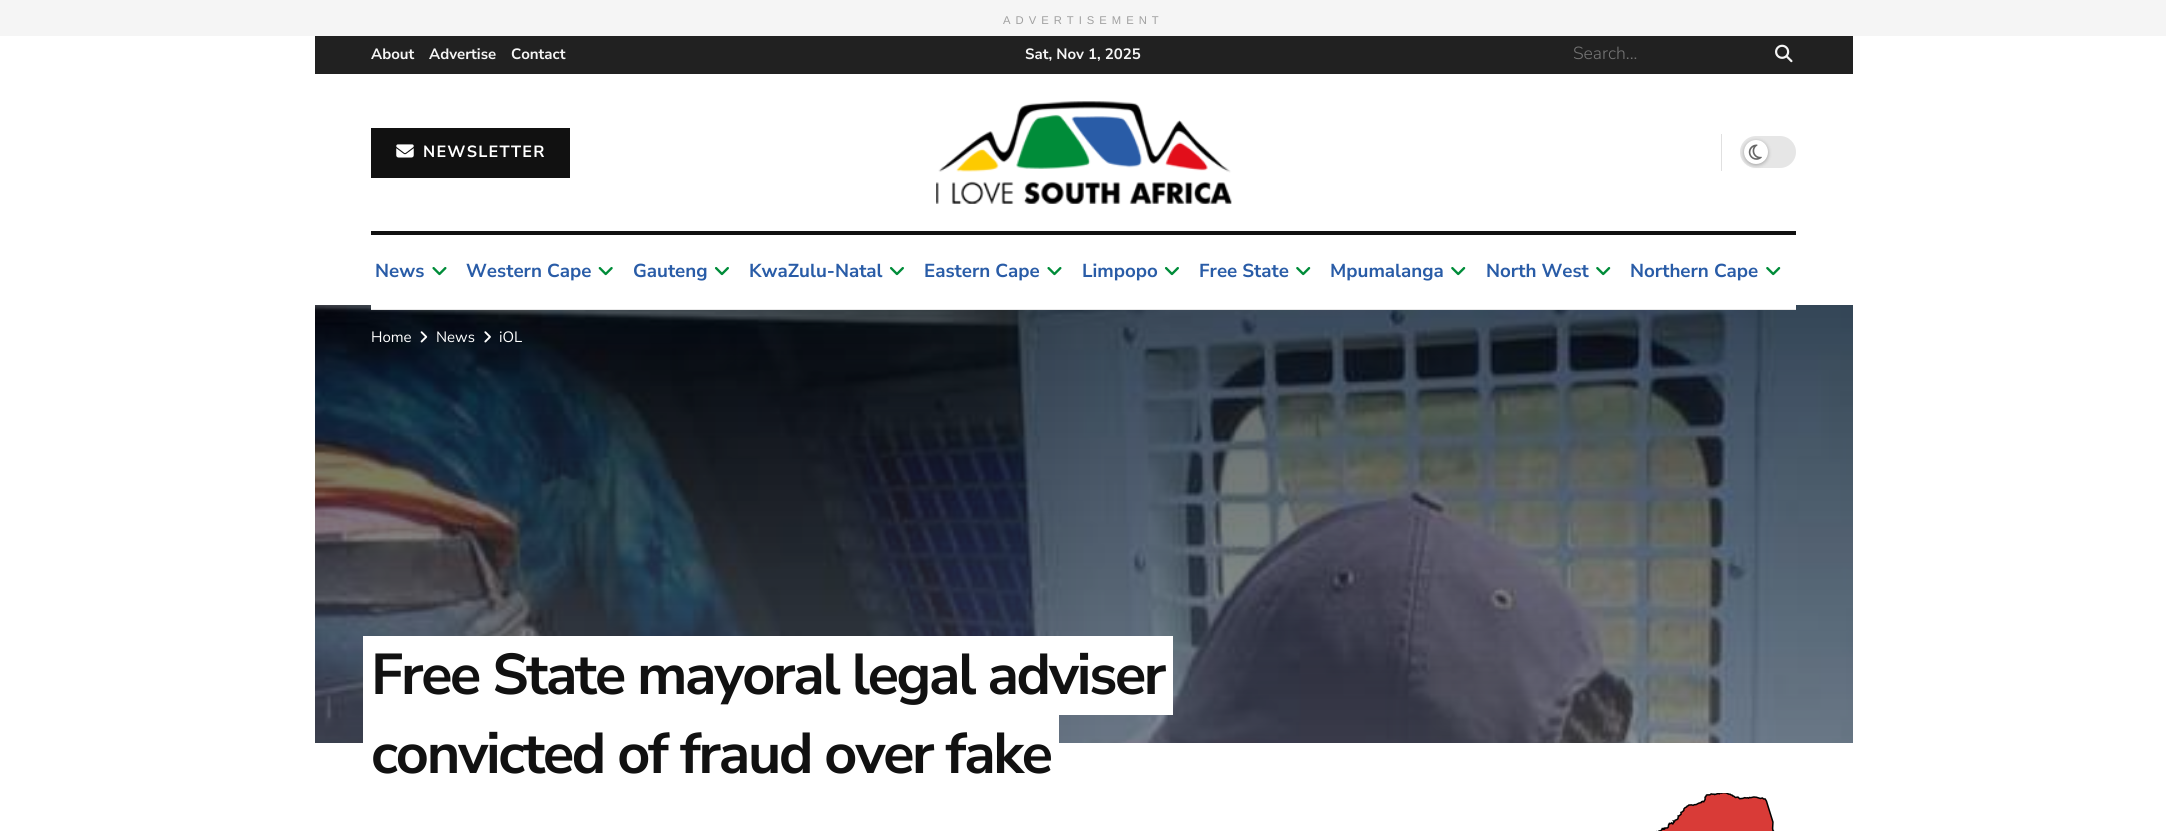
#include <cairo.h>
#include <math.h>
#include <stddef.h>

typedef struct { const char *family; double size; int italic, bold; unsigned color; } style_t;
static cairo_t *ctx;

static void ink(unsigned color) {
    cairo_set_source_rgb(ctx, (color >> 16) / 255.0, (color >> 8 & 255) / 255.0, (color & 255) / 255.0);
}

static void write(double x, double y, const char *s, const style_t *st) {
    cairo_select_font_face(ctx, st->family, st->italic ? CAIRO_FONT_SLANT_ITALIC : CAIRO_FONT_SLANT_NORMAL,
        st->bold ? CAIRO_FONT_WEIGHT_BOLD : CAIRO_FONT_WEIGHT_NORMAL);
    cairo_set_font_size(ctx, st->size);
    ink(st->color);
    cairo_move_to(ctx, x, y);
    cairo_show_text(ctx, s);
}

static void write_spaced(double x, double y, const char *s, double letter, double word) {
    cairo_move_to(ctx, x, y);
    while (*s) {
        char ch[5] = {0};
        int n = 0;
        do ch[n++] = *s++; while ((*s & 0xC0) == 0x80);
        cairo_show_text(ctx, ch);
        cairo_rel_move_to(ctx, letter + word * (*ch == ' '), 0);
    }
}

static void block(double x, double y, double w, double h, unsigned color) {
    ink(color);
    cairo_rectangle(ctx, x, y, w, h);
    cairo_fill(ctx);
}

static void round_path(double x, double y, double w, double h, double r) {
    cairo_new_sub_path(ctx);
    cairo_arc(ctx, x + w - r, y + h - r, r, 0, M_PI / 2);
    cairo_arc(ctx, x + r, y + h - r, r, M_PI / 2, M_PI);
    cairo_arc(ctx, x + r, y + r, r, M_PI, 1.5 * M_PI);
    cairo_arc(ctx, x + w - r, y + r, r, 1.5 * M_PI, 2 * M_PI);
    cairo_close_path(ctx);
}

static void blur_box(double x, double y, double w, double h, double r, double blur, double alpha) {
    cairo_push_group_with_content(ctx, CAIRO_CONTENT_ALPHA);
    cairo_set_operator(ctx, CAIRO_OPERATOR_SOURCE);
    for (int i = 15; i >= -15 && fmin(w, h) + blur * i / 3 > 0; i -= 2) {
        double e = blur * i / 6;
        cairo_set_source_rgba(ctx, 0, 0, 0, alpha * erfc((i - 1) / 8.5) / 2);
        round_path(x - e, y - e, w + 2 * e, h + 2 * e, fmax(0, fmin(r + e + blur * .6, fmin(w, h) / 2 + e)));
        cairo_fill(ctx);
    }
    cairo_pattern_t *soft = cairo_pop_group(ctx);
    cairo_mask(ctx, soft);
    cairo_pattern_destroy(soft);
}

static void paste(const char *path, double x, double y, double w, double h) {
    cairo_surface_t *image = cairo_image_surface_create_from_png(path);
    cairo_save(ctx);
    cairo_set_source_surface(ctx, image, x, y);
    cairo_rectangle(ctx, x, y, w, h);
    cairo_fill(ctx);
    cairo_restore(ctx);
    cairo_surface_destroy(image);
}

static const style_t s1 = {"Nunito Sans", 15, 0, 1, 0xf5f5f5};
static const style_t s2 = {"Nunito Sans Light", 17.5, 0, 0, 0x757575};
static const style_t s3 = {"Nunito Sans", 18.75, 0, 1, 0x295ca7};
static const style_t s4 = {"Nunito Sans", 15, 0, 0, 0xffffff};

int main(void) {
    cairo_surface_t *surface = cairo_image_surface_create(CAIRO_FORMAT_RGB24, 2166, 831);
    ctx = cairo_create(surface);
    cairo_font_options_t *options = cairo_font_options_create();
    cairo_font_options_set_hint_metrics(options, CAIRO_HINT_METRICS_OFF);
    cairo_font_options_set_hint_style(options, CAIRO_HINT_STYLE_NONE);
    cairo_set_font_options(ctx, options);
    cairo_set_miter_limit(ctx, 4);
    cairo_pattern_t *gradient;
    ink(0xffffff);
    cairo_paint(ctx);
    block(0, 0, 2166, 36, 0xf5f5f5);
    cairo_select_font_face(ctx, "Liberation Sans", CAIRO_FONT_SLANT_NORMAL, CAIRO_FONT_WEIGHT_NORMAL);
    cairo_set_font_size(ctx, 11.25);
    ink(0xa0a0a0);
    write_spaced(1003, 24, "ADVERTISEMENT", 5, 0);
    block(315, 36, 1538, 38, 0x212121);
    write(371, 59, "About", &s1);
    write(429, 59, "Advertise", &s1);
    write(511, 59, "Contact", &s1);
    write(1025, 59, "Sat, Nov 1, 2025", &s1);
    write(1573, 59, "Search...", &s2);
    paste("pic1.png", 1775, 44, 18, 19);
    block(371, 128, 199, 50, 0x111111);
    paste("pic2.png", 396, 144, 18, 14);
    cairo_select_font_face(ctx, "Nunito Sans", CAIRO_FONT_SLANT_NORMAL, CAIRO_FONT_WEIGHT_BOLD);
    cairo_set_font_size(ctx, 16.25);
    ink(0xffffff);
    write_spaced(423, 157, "NEWSLETTER", 1.25, 0);
    paste("pic3.png", 936, 101, 296, 103);
    block(1721, 134, 1, 37, 0xe0e0e0);
    ink(0xe6e6e6);
    round_path(1740, 136, 56, 32, 16);
    cairo_fill(ctx);
    ink(0x000000);
    blur_box(1744, 141, 24, 24, 12, 2, 0.3);
    ink(0xffffff);
    cairo_arc(ctx, 1756, 152, 12, 0, 2 * M_PI);
    cairo_fill(ctx);
    paste("pic4.png", 1748, 144, 14, 16);
    gradient = cairo_pattern_create_linear(1084, 305, 1084, 743);
    cairo_pattern_add_color_stop_rgba(gradient, 0, 0, 0, 0, 1);
    cairo_pattern_add_color_stop_rgba(gradient, 1, 0.329, 0.329, 0.329, 1);
    cairo_set_source(ctx, gradient);
    cairo_pattern_destroy(gradient);
    cairo_rectangle(ctx, 315, 305, 1538, 438);
    cairo_fill(ctx);
    paste("pic9.png", 315, 305, 1538, 438);
    block(371, 305, 1425, 4, 0xffffff);
    block(371, 231, 1425, 4, 0x111111);
    block(371, 309, 1425, 1, 0xe8e8e8);
    write(375, 277, "News", &s3);
    paste("pic5.png", 432, 267, 15, 9);
    write(466, 277, "Western Cape", &s3);
    paste("pic6.png", 598, 267, 15, 9);
    write(633, 277, "Gauteng", &s3);
    paste("pic7.png", 714, 267, 15, 9);
    write(749, 277, "KwaZulu-Natal", &s3);
    paste("pic7.png", 889, 267, 15, 9);
    write(924, 277, "Eastern Cape", &s3);
    paste("pic5.png", 1047, 267, 15, 9);
    write(1082, 277, "Limpopo", &s3);
    paste("pic7.png", 1164, 267, 15, 9);
    write(1199, 277, "Free State", &s3);
    paste("pic8.png", 1296, 267, 15, 9);
    write(1330, 277, "Mpumalanga", &s3);
    paste("pic8.png", 1451, 267, 15, 9);
    write(1486, 277, "North West", &s3);
    paste("pic8.png", 1596, 267, 15, 9);
    write(1630, 277, "Northern Cape", &s3);
    paste("pic8.png", 1766, 267, 15, 9);
    write(371, 342, "Home", &s4);
    paste("pic10.png", 420, 331, 8, 12);
    write(436, 342, "News", &s4);
    paste("pic11.png", 484, 331, 7, 12);
    write(499, 342, "iOL", &s4);
    cairo_new_path(ctx);
    cairo_move_to(ctx, 380, 636);
    cairo_line_to(ctx, 1164, 636);
    cairo_line_to(ctx, 1164, 715);
    cairo_line_to(ctx, 1173, 715);
    cairo_line_to(ctx, 1173, 636);
    cairo_close_path(ctx);
    cairo_fill(ctx);
    block(371, 636, 793, 79, 0xffffff);
    cairo_select_font_face(ctx, "Nunito Sans", CAIRO_FONT_SLANT_NORMAL, CAIRO_FONT_WEIGHT_BOLD);
    cairo_set_font_size(ctx, 57.5);
    ink(0x111111);
    write_spaced(371, 694, "Free State mayoral legal adviser", -2.3, 0);
    ink(0xffffff);
    cairo_new_path(ctx);
    cairo_move_to(ctx, 363, 636);
    cairo_line_to(ctx, 363, 715);
    cairo_line_to(ctx, 371, 715);
    cairo_line_to(ctx, 371, 636);
    cairo_line_to(ctx, 1155, 636);
    cairo_close_path(ctx);
    cairo_fill(ctx);
    cairo_new_path(ctx);
    cairo_move_to(ctx, 380, 794);
    cairo_line_to(ctx, 1059, 794);
    cairo_line_to(ctx, 1059, 715);
    cairo_line_to(ctx, 1050, 715);
    cairo_line_to(ctx, 1050, 794);
    cairo_close_path(ctx);
    cairo_fill(ctx);
    block(371, 715, 679, 28, 0xffffff);
    ink(0x111111);
    write_spaced(371, 773, "convicted of fraud over fake", -2.3, 0);
    ink(0xffffff);
    cairo_new_path(ctx);
    cairo_move_to(ctx, 363, 715);
    cairo_line_to(ctx, 363, 794);
    cairo_line_to(ctx, 1041, 794);
    cairo_line_to(ctx, 371, 794);
    cairo_line_to(ctx, 371, 715);
    cairo_close_path(ctx);
    cairo_fill(ctx);
    paste("pic12.png", 1656, 793, 119, 38);
    cairo_surface_write_to_png(surface, "screenshot.png");
    cairo_font_options_destroy(options);
    cairo_destroy(ctx);
    cairo_surface_destroy(surface);
    return 0;
}
